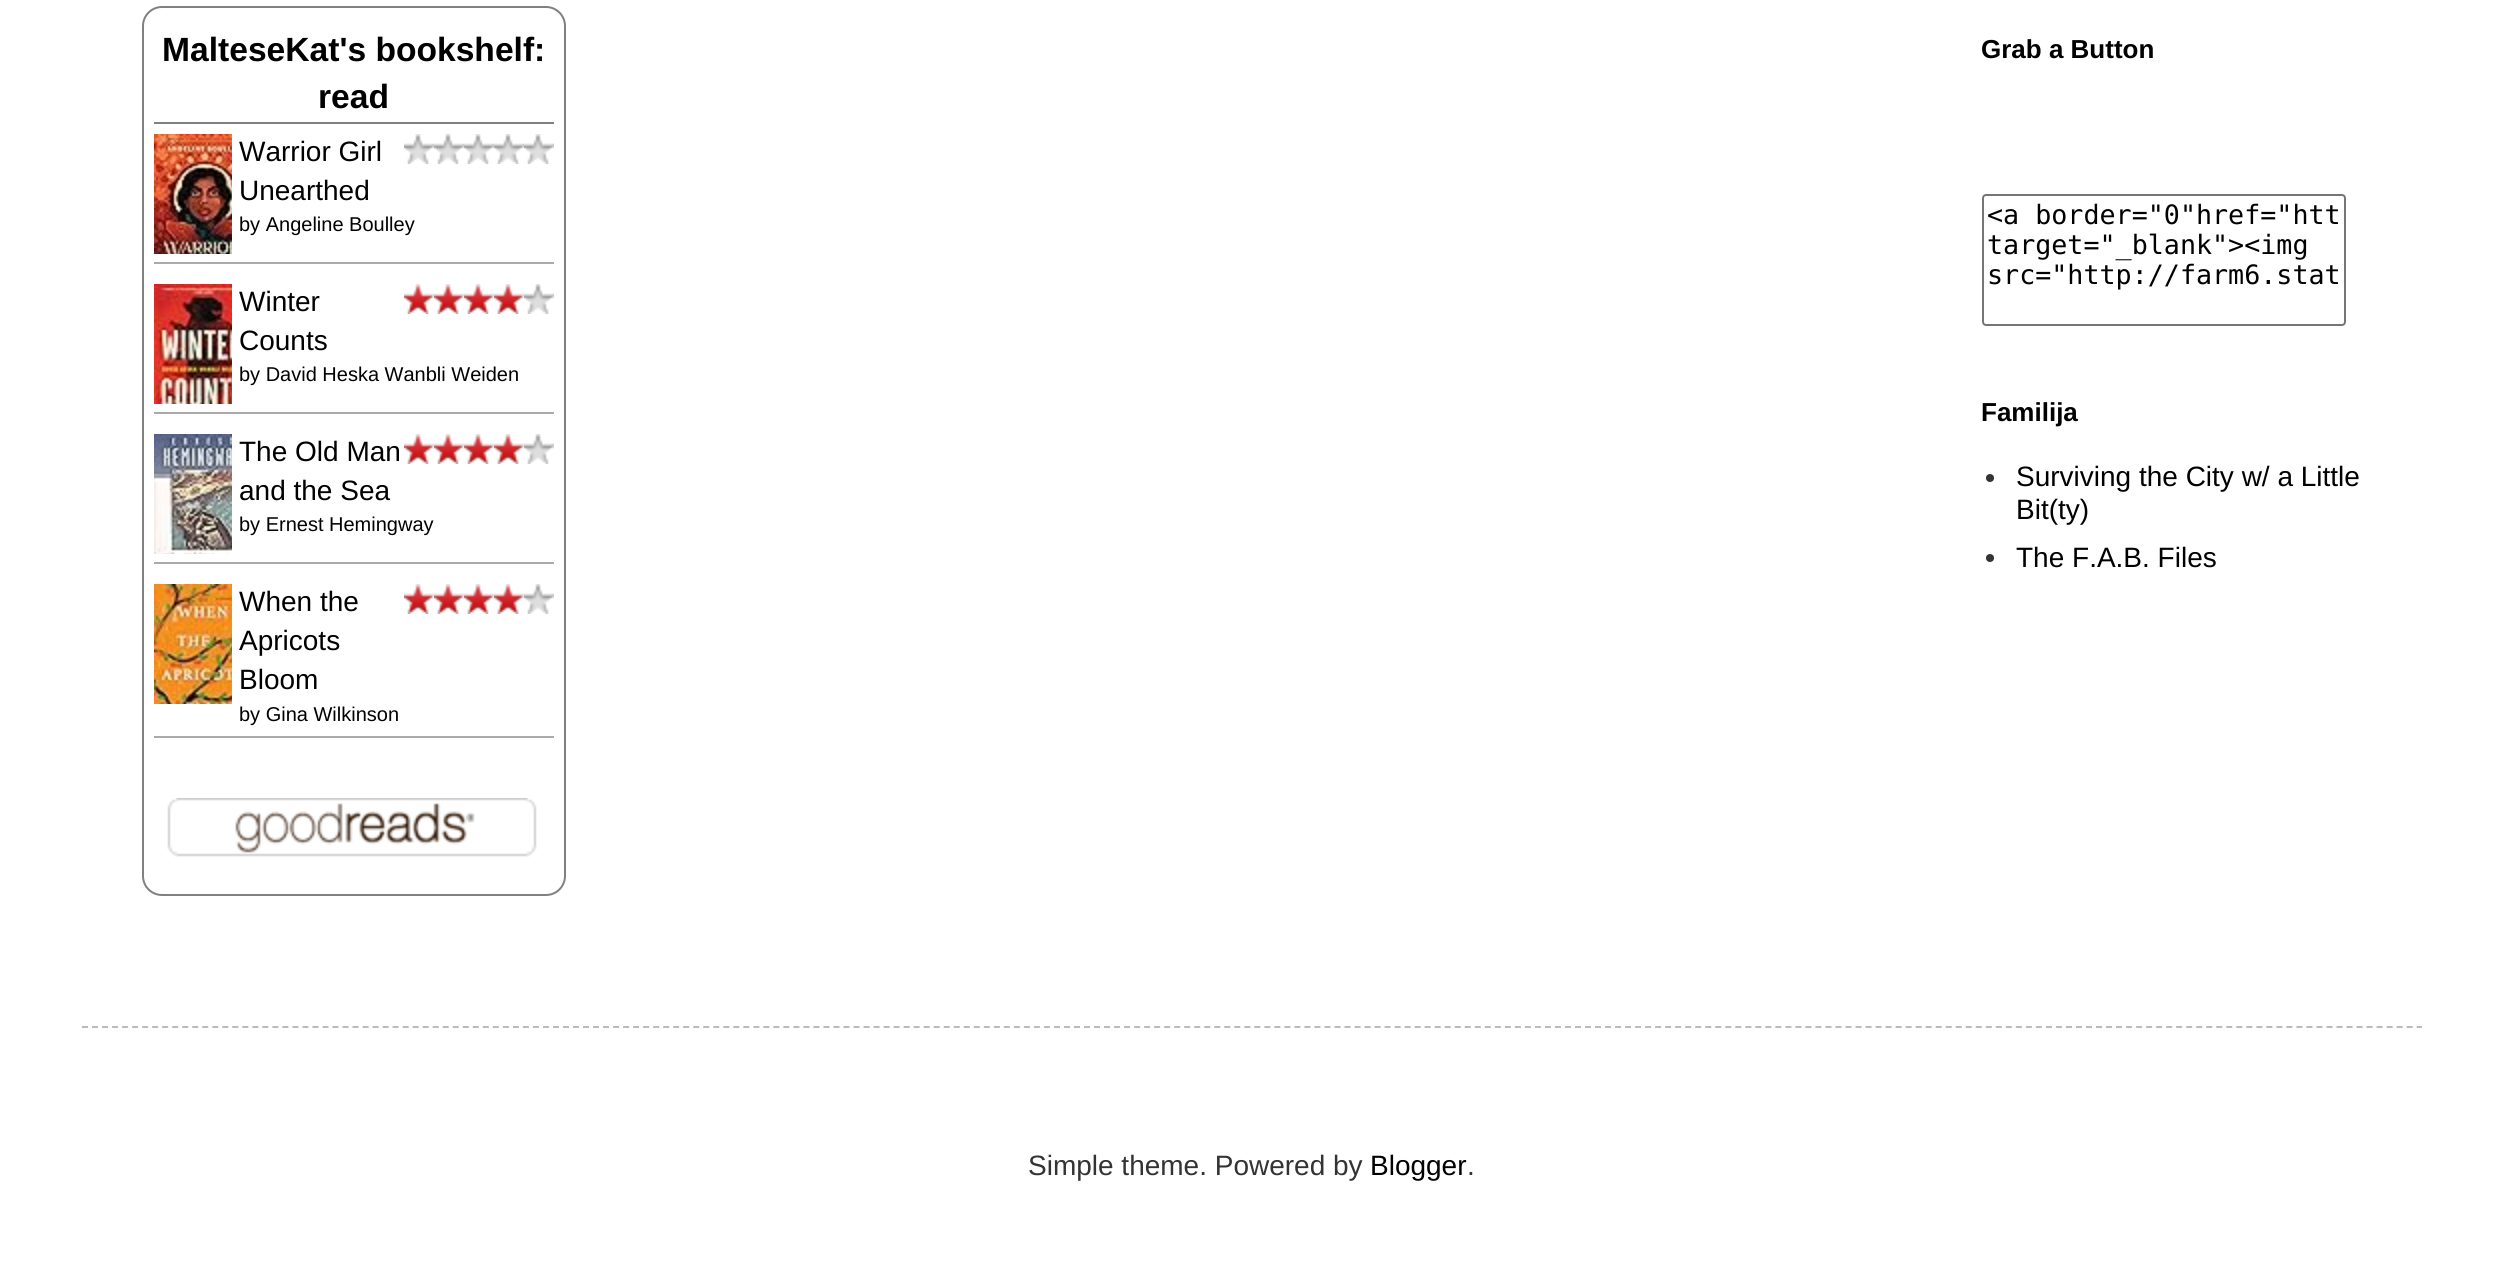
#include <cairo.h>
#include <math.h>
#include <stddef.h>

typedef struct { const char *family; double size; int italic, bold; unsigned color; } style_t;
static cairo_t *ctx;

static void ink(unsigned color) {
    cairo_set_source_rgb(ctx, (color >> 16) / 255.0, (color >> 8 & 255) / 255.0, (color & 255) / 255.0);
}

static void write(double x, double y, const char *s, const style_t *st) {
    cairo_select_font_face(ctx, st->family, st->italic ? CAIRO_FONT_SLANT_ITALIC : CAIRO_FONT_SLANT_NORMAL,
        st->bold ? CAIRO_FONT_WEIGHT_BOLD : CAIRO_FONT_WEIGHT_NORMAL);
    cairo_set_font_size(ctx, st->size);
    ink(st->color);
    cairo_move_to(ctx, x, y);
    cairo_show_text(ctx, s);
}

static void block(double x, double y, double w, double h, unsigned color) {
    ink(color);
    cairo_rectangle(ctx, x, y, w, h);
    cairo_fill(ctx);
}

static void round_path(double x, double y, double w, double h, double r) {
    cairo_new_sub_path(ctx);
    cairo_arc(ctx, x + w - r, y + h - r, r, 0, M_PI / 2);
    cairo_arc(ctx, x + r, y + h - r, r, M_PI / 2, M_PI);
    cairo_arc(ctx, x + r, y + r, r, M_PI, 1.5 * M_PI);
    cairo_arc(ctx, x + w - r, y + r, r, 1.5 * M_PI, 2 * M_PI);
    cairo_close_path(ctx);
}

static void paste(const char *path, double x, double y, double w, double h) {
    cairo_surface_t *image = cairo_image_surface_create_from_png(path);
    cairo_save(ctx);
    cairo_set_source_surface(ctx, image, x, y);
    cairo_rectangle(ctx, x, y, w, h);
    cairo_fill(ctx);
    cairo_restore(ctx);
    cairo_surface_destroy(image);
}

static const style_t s1 = {"Liberation Sans", 33.6, 0, 1, 0x000000};
static const style_t s2 = {"Liberation Sans", 28, 0, 0, 0x000000};
static const style_t s3 = {"Liberation Sans", 20, 0, 0, 0x000000};
static const style_t s4 = {"Liberation Sans", 26, 0, 1, 0x000000};
static const style_t s5 = {"DejaVu Sans Mono", 26.7, 0, 0, 0x000000};
static const style_t s6 = {"Liberation Sans", 28, 0, 0, 0x333333};

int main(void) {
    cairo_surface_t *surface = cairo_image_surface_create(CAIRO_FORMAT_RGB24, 2502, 1263);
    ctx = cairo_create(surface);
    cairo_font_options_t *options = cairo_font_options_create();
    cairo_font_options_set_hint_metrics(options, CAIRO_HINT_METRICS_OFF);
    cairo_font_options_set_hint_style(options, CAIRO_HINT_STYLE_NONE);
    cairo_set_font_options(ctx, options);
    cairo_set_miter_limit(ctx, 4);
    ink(0xffffff);
    cairo_paint(ctx);
    round_path(143, 7, 422, 888, 19);
    ink(0x808080);
    cairo_stroke(ctx);
    block(154, 122, 400, 2, 0x808080);
    write(162, 61, "MalteseKat's bookshelf:", &s1);
    write(318, 108, "read", &s1);
    block(154, 262, 400, 2, 0xaaaaaa);
    paste("pic1.png", 154, 134, 78, 120);
    write(239, 161, "Warrior Girl", &s2);
    write(239, 200, "Unearthed", &s2);
    paste("pic2.png", 404, 134, 30, 30);
    paste("pic2.png", 434, 134, 30, 30);
    paste("pic2.png", 464, 134, 30, 30);
    paste("pic2.png", 494, 134, 30, 30);
    paste("pic2.png", 524, 134, 30, 30);
    write(239, 231, "by Angeline Boulley", &s3);
    block(154, 412, 400, 2, 0xaaaaaa);
    paste("pic3.png", 154, 284, 78, 120);
    write(239, 311, "Winter", &s2);
    write(239, 350, "Counts", &s2);
    paste("pic4.png", 404, 284, 30, 30);
    paste("pic4.png", 434, 284, 30, 30);
    paste("pic4.png", 464, 284, 30, 30);
    paste("pic4.png", 494, 284, 30, 30);
    paste("pic2.png", 524, 284, 30, 30);
    write(239, 381, "by David Heska Wanbli Weiden", &s3);
    block(154, 562, 400, 2, 0xaaaaaa);
    paste("pic5.png", 154, 434, 78, 120);
    write(239, 461, "The Old Man", &s2);
    write(239, 500, "and the Sea", &s2);
    paste("pic4.png", 404, 434, 30, 30);
    paste("pic4.png", 434, 434, 30, 30);
    paste("pic4.png", 464, 434, 30, 30);
    paste("pic4.png", 494, 434, 30, 30);
    paste("pic2.png", 524, 434, 30, 30);
    write(239, 531, "by Ernest Hemingway", &s3);
    block(154, 736, 400, 2, 0xaaaaaa);
    paste("pic6.png", 154, 584, 78, 120);
    write(239, 611, "When the", &s2);
    write(239, 650, "Apricots", &s2);
    write(239, 689, "Bloom", &s2);
    paste("pic4.png", 404, 584, 30, 30);
    paste("pic4.png", 434, 584, 30, 30);
    paste("pic4.png", 464, 584, 30, 30);
    paste("pic4.png", 494, 584, 30, 30);
    paste("pic2.png", 524, 584, 30, 30);
    write(239, 721, "by Gina Wilkinson", &s3);
    paste("pic7.png", 167, 798, 370, 59);
    write(1981, 58, "Grab a Button", &s4);
    round_path(1983, 195, 362, 130, 3);
    ink(0x767676);
    cairo_stroke(ctx);
    write(1987, 224, "<a border=\"0\"href=\"htt", &s5);
    write(1987, 254, "target=\"_blank\"><img", &s5);
    write(1987, 284, "src=\"http://farm6.stat", &s5);
    write(1981, 421, "Familija", &s4);
    ink(0x333333);
    cairo_new_path(ctx);
    cairo_arc(ctx, 1990, 478, 4, 0, 2 * M_PI);
    cairo_fill(ctx);
    write(2016, 486, "Surviving the City w/ a Little", &s2);
    write(2016, 519, "Bit(ty)", &s2);
    ink(0x333333);
    cairo_new_path(ctx);
    cairo_arc(ctx, 1990, 558, 4, 0, 2 * M_PI);
    cairo_fill(ctx);
    write(2016, 567, "The F.A.B. Files", &s2);
    cairo_new_path(ctx);
    cairo_move_to(ctx, 82, 1027);
    cairo_line_to(ctx, 2422, 1027);
    ink(0xbbbbbb);
    cairo_set_dash(ctx, (double[]){6, 4.02}, 2, 0);
    cairo_stroke(ctx);
    write(1028, 1175, "Simple theme. Powered by", &s6);
    write(1370, 1175, "Blogger", &s2);
    write(1467, 1175, ".", &s6);
    cairo_surface_write_to_png(surface, "screenshot.png");
    cairo_font_options_destroy(options);
    cairo_destroy(ctx);
    cairo_surface_destroy(surface);
    return 0;
}
